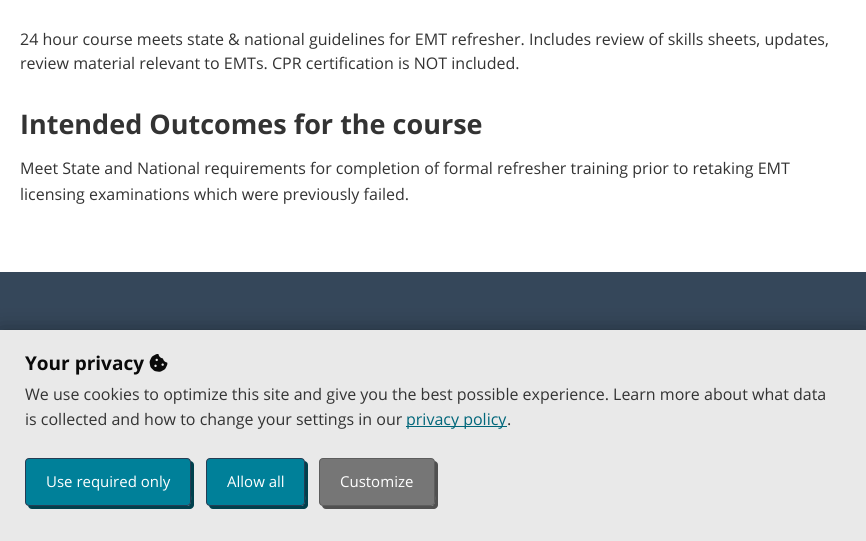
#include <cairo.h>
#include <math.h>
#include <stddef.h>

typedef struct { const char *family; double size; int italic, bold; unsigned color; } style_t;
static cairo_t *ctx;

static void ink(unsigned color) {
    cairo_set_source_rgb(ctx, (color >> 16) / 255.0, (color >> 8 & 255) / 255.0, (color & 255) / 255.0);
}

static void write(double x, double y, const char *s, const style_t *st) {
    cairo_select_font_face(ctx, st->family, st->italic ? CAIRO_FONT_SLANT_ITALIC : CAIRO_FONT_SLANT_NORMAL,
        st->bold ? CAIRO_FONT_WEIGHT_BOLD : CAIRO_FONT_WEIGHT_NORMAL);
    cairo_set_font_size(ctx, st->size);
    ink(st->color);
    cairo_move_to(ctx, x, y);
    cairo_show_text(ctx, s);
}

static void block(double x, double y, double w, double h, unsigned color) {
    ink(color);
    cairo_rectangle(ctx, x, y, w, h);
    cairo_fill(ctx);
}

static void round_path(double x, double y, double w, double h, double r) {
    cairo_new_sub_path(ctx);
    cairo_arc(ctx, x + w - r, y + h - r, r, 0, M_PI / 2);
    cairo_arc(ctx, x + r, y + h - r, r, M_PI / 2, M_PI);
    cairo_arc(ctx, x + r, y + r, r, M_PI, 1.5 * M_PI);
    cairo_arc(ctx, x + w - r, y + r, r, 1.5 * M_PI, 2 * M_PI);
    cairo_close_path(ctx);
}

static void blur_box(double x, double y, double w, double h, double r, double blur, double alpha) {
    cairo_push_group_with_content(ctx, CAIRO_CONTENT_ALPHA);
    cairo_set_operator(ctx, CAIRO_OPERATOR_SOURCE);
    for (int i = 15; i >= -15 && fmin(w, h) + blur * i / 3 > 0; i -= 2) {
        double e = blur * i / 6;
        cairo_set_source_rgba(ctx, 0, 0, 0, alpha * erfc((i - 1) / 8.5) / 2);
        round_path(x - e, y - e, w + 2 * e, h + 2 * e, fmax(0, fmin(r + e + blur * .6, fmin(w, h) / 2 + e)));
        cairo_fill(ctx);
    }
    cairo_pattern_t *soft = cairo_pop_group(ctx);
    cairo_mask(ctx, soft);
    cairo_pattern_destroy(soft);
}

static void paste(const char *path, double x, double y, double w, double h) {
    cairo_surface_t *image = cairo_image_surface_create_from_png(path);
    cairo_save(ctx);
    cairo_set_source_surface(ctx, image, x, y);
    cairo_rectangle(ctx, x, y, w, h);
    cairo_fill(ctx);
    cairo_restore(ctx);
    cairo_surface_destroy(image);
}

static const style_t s1 = {"Open Sans", 16, 0, 0, 0x333333};
static const style_t s2 = {"Open Sans", 27, 0, 1, 0x333333};
static const style_t s3 = {"Open Sans", 19, 0, 1, 0x0a0a0a};
static const style_t s4 = {"Open Sans", 16, 0, 0, 0x00667a};
static const style_t s5 = {"Open Sans", 15, 0, 0, 0xffffff};

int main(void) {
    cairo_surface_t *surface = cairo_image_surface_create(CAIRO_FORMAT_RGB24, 866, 541);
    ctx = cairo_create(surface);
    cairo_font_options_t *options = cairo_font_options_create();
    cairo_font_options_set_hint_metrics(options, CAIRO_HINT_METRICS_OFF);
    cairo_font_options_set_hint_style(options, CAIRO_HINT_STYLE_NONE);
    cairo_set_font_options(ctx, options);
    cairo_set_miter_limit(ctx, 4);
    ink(0x35475a);
    cairo_paint(ctx);
    block(0, 0, 866, 272, 0xffffff);
    write(20, 45, "24 hour course meets state & national guidelines for EMT refresher. Includes review of skills sheets, updates,", &s1);
    write(20, 69, "review material relevant to EMTs. CPR certification is NOT included.", &s1);
    write(20, 134, "Intended Outcomes for the course", &s2);
    write(20, 174, "Meet State and National requirements for completion of formal refresher training prior to retaking EMT", &s1);
    write(20, 200, "licensing examinations which were previously failed.", &s1);
    ink(0x000000);
    blur_box(0, 335, 866, 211, 0, 12.5, 0.5);
    block(0, 330, 866, 211, 0xe9e9e9);
    write(25, 370, "Your privacy", &s3);
    paste("pic1.png", 149, 354, 19, 18);
    write(25, 400, "We use cookies to optimize this site and give you the best possible experience. Learn more about what data", &s1);
    write(25, 425, "is collected and how to change your settings in our", &s1);
    block(406, 426, 101, 1, 0x00667a);
    write(406, 425, "privacy policy", &s4);
    write(507, 425, ".", &s1);
    ink(0x00404d);
    cairo_new_path(ctx);
    cairo_move_to(ctx, 28, 506);
    cairo_curve_to(ctx, 29, 508, 30, 509, 32, 509);
    cairo_line_to(ctx, 190, 509);
    cairo_curve_to(ctx, 192, 509, 194, 507, 194, 505);
    cairo_line_to(ctx, 194, 465);
    cairo_curve_to(ctx, 194, 463, 193, 462, 191, 461);
    cairo_line_to(ctx, 191, 495);
    cairo_curve_to(ctx, 191, 498, 192, 506, 187, 506);
    cairo_close_path(ctx);
    cairo_fill(ctx);
    ink(0x008099);
    round_path(25.5, 458.5, 165, 47, 3.5);
    cairo_fill_preserve(ctx);
    ink(0x263c53);
    cairo_set_line_width(ctx, 1);
    cairo_stroke(ctx);
    write(46, 487, "Use required only", &s5);
    ink(0x00404d);
    cairo_new_path(ctx);
    cairo_move_to(ctx, 209, 506);
    cairo_curve_to(ctx, 210, 508, 211, 509, 213, 509);
    cairo_line_to(ctx, 304, 509);
    cairo_curve_to(ctx, 306, 509, 308, 507, 308, 505);
    cairo_line_to(ctx, 308, 465);
    cairo_curve_to(ctx, 308, 463, 307, 462, 305, 461);
    cairo_line_to(ctx, 305, 495);
    cairo_curve_to(ctx, 305, 498, 306, 506, 301, 506);
    cairo_close_path(ctx);
    cairo_fill(ctx);
    ink(0x008099);
    round_path(206.5, 458.5, 98, 47, 3.5);
    cairo_fill_preserve(ctx);
    ink(0x263c53);
    cairo_stroke(ctx);
    write(227, 487, "Allow all", &s5);
    ink(0x505050);
    cairo_new_path(ctx);
    cairo_move_to(ctx, 322, 506);
    cairo_curve_to(ctx, 323, 508, 324, 509, 326, 509);
    cairo_line_to(ctx, 434, 509);
    cairo_curve_to(ctx, 436, 509, 438, 507, 438, 505);
    cairo_line_to(ctx, 438, 465);
    cairo_curve_to(ctx, 438, 463, 437, 462, 435, 461);
    cairo_line_to(ctx, 435, 495);
    cairo_curve_to(ctx, 435, 498, 436, 506, 431, 506);
    cairo_close_path(ctx);
    cairo_fill(ctx);
    ink(0x767676);
    round_path(319.5, 458.5, 115, 47, 3.5);
    cairo_fill_preserve(ctx);
    ink(0x5d5d5d);
    cairo_stroke(ctx);
    write(340, 487, "Customize", &s5);
    cairo_surface_write_to_png(surface, "screenshot.png");
    cairo_font_options_destroy(options);
    cairo_destroy(ctx);
    cairo_surface_destroy(surface);
    return 0;
}
